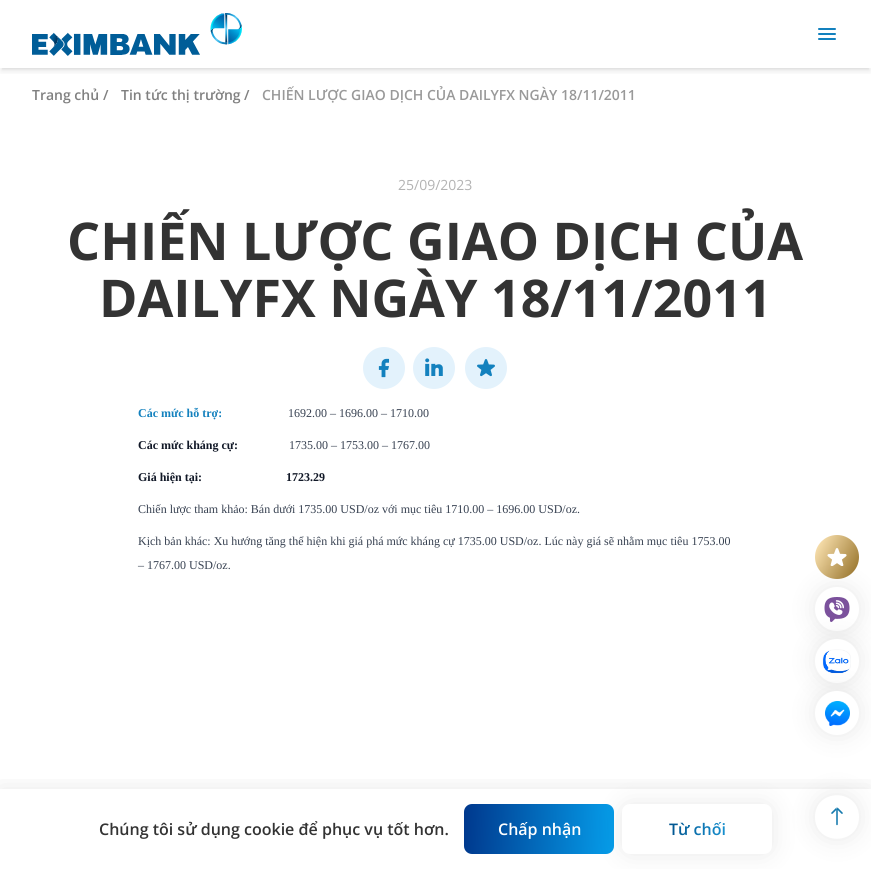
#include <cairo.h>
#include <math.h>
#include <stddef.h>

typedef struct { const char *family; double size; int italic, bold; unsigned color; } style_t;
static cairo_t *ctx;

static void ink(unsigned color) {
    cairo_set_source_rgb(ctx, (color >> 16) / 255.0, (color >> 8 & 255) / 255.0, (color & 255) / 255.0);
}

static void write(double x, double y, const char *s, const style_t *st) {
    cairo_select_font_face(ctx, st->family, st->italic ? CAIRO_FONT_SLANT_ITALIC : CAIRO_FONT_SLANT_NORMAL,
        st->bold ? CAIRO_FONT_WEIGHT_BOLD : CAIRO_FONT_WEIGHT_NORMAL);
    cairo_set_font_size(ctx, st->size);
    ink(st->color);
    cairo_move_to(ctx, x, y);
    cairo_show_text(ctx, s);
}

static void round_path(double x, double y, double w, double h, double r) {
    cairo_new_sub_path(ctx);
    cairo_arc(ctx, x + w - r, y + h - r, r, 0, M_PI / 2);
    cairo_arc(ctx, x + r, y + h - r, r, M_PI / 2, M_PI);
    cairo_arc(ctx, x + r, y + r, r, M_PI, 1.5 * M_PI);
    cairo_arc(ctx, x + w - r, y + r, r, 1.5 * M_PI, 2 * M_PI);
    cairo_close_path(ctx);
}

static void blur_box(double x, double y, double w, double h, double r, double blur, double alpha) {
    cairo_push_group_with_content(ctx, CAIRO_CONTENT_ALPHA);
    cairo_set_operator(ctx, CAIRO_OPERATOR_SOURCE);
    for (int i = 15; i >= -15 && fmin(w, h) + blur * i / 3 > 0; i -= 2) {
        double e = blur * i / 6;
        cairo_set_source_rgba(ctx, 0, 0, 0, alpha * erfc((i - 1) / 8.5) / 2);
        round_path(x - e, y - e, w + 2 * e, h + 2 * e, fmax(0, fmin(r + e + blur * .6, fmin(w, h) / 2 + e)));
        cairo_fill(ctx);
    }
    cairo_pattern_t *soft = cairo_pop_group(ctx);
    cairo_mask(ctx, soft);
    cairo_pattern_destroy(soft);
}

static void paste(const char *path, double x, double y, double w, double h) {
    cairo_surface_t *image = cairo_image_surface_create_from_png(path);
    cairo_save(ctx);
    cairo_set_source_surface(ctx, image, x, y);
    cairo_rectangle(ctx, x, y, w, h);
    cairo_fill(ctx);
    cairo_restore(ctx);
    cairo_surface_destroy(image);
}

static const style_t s1 = {"Open Sans SemiBold", 14, 0, 0, 0x808080};
static const style_t s2 = {"Open Sans SemiBold", 14, 0, 0, 0x999999};
static const style_t s3 = {"Open Sans", 14, 0, 0, 0xb3b3b3};
static const style_t s4 = {"Open Sans", 52, 0, 1, 0x333333};
static const style_t s5 = {"Liberation Serif", 12, 0, 1, 0x1381be};
static const style_t s6 = {"Liberation Serif", 12, 0, 0, 0x374151};
static const style_t s7 = {"Liberation Serif", 12, 0, 1, 0x111827};
static const style_t s8 = {"Open Sans SemiBold", 16, 0, 0, 0x333333};
static const style_t s9 = {"Open Sans SemiBold", 16, 0, 0, 0xffffff};

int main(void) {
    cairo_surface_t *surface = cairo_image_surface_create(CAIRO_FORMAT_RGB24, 871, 869);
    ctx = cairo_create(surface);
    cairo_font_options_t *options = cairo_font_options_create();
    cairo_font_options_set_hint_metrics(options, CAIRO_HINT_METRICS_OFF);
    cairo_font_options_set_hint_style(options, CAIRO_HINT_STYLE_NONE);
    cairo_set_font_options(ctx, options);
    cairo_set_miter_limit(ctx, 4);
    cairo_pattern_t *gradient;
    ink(0xffffff);
    cairo_paint(ctx);
    cairo_save(ctx);
    cairo_rectangle(ctx, 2, 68, 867, 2);
    cairo_clip(ctx);
    ink(0x000000);
    blur_box(2, 4, 867, 64, 0, 2, 0.1);
    cairo_restore(ctx);
    cairo_save(ctx);
    cairo_rectangle(ctx, 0, 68, 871, 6);
    cairo_clip(ctx);
    ink(0x000000);
    blur_box(1, 5, 869, 66, 0, 3, 0.1);
    cairo_restore(ctx);
    paste("pic1.png", 32, 13, 210, 43);
    paste("pic2.png", 818, 28, 18, 12);
    write(32, 100, "Trang chủ", &s1);
    write(103, 100, "/", &s1);
    write(121, 100, "Tin tức thị trường", &s1);
    write(244, 100, "/", &s1);
    write(262, 100, "CHIẾN LƯỢC GIAO DỊCH CỦA DAILYFX NGÀY 18/11/2011", &s2);
    write(398, 190, "25/09/2023", &s3);
    write(67, 260, "CHIẾN LƯỢC GIAO DỊCH CỦA", &s4);
    write(99, 317, "DAILYFX NGÀY 18/11/2011", &s4);
    paste("pic3.png", 363, 347, 42, 42);
    paste("pic4.png", 413, 347, 42, 42);
    paste("pic5.png", 465, 347, 42, 42);
    write(138, 417, "Các mức hỗ trợ:", &s5);
    write(288, 417, "1692.00 – 1696.00 – 1710.00", &s6);
    write(138, 449, "Các mức kháng cự:", &s7);
    write(289, 449, "1735.00 – 1753.00 – 1767.00", &s6);
    write(138, 481, "Giá hiện tại:                            1723.29", &s7);
    write(138, 513, "Chiến lược tham khảo: Bán dưới 1735.00 USD/oz với mục tiêu 1710.00 – 1696.00 USD/oz.", &s6);
    write(138, 545, "Kịch bản khác: Xu hướng tăng thể hiện khi giá phá mức kháng cự 1735.00 USD/oz. Lúc này giá sẽ nhằm mục tiêu 1753.00", &s6);
    write(138, 569, "– 1767.00 USD/oz.", &s6);
    cairo_save(ctx);
    cairo_rectangle(ctx, 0, 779, 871, 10);
    cairo_clip(ctx);
    ink(0x000000);
    blur_box(0, 789, 871, 80, 0, 12.5, 0.09);
    cairo_restore(ctx);
    write(99, 835, "Chúng tôi sử dụng cookie để phục vụ tốt hơn.", &s8);
    gradient = cairo_pattern_create_linear(463, 825, 626, 834);
    cairo_pattern_add_color_stop_rgba(gradient, 0, 0, 0.22, 0.553, 1);
    cairo_pattern_add_color_stop_rgba(gradient, 1, 0.024, 0.647, 0.945, 1);
    cairo_set_source(ctx, gradient);
    cairo_pattern_destroy(gradient);
    round_path(464, 804, 150, 50, 8);
    cairo_fill(ctx);
    write(498, 835, "Chấp nhận", &s9);
    ink(0x000000);
    blur_box(622, 804, 150, 50, 8, 12.5, 0.09);
    ink(0xffffff);
    round_path(622, 804, 150, 50, 8);
    cairo_fill(ctx);
    gradient = cairo_pattern_create_linear(668, 827, 731, 831);
    cairo_pattern_add_color_stop_rgba(gradient, 0, 0, 0.325, 0.553, 1);
    cairo_pattern_add_color_stop_rgba(gradient, 1, 0.106, 0.588, 0.835, 1);
    cairo_set_source(ctx, gradient);
    cairo_pattern_destroy(gradient);
    cairo_move_to(ctx, 669, 835);
    cairo_show_text(ctx, "Từ chối");
    gradient = cairo_pattern_create_linear(811, 543, 863, 571);
    cairo_pattern_add_color_stop_rgba(gradient, 0.04, 1, 0.906, 0.714, 1);
    cairo_pattern_add_color_stop_rgba(gradient, 0.97, 0.588, 0.447, 0.161, 1);
    cairo_set_source(ctx, gradient);
    cairo_pattern_destroy(gradient);
    cairo_new_path(ctx);
    cairo_arc(ctx, 837, 557, 22, 0, 2 * M_PI);
    cairo_fill(ctx);
    paste("pic6.png", 827, 548, 20, 18);
    ink(0x000000);
    blur_box(815, 587, 44, 44, 22, 12.5, 0.09);
    ink(0xffffff);
    cairo_arc(ctx, 837, 609, 22, 0, 2 * M_PI);
    cairo_fill(ctx);
    paste("pic7.png", 824, 597, 26, 25);
    ink(0x000000);
    blur_box(815, 639, 44, 44, 22, 12.5, 0.09);
    ink(0xffffff);
    cairo_arc(ctx, 837, 661, 22, 0, 2 * M_PI);
    cairo_fill(ctx);
    paste("pic8.png", 822, 649, 29, 25);
    ink(0x000000);
    blur_box(815, 691, 44, 44, 22, 12.5, 0.09);
    ink(0xffffff);
    cairo_arc(ctx, 837, 713, 22, 0, 2 * M_PI);
    cairo_fill(ctx);
    paste("pic9.png", 825, 701, 25, 25);
    ink(0x000000);
    blur_box(815, 795, 44, 44, 22, 12.5, 0.09);
    ink(0xffffff);
    cairo_new_path(ctx);
    cairo_move_to(ctx, 815, 817);
    cairo_curve_to(ctx, 815, 788, 859, 788, 859, 817);
    cairo_curve_to(ctx, 859, 846, 815, 846, 815, 817);
    cairo_close_path(ctx);
    cairo_fill(ctx);
    paste("pic10.png", 831, 807, 12, 19);
    cairo_surface_write_to_png(surface, "screenshot.png");
    cairo_font_options_destroy(options);
    cairo_destroy(ctx);
    cairo_surface_destroy(surface);
    return 0;
}
